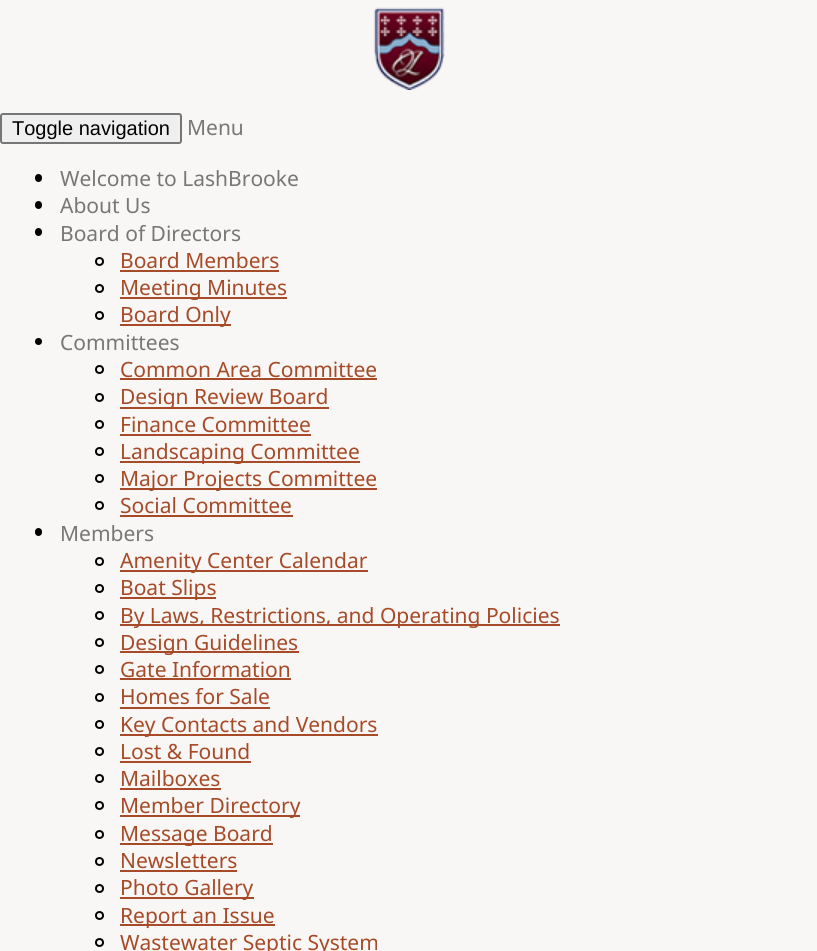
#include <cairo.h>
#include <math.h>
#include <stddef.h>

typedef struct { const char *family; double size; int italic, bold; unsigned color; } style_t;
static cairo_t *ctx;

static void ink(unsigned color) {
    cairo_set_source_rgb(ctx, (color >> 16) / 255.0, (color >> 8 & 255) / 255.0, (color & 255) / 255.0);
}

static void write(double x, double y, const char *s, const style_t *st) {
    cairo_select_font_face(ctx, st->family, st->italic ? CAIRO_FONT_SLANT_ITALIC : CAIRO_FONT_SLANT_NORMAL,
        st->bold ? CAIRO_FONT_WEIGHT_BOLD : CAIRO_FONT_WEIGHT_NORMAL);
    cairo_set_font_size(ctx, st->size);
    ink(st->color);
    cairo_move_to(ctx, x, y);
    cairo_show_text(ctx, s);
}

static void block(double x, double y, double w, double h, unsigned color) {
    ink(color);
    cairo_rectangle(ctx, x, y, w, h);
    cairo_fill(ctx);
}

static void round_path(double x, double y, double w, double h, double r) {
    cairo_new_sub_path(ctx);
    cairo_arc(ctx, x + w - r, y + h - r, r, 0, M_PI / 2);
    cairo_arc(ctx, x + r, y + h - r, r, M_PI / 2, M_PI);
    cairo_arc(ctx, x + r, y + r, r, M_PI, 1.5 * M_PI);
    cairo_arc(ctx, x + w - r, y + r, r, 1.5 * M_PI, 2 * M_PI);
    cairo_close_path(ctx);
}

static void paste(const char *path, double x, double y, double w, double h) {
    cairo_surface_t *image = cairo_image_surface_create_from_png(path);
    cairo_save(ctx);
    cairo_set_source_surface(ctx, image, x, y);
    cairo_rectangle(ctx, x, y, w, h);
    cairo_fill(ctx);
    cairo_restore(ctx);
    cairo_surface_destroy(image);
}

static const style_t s1 = {"Liberation Sans", 20, 0, 0, 0x000000};
static const style_t s2 = {"Noto Sans", 21, 0, 0, 0x777777};
static const style_t s3 = {"Noto Sans", 21, 0, 0, 0xa74a28};

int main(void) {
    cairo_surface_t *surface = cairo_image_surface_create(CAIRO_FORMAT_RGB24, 817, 951);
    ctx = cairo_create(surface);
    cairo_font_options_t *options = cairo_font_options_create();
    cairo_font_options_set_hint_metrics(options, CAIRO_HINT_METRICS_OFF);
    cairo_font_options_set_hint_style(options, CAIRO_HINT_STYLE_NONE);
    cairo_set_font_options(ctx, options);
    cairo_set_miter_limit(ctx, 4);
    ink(0xf8f7f5);
    cairo_paint(ctx);
    paste("pic1.png", 373, 7, 72, 83);
    ink(0xefefef);
    round_path(1, 114, 180, 29, 2);
    cairo_fill_preserve(ctx);
    ink(0x767676);
    cairo_stroke(ctx);
    write(12, 135, "Toggle navigation", &s1);
    write(187, 135, "Menu", &s2);
    ink(0x000000);
    round_path(35, 174, 7, 8, 3.5);
    cairo_fill(ctx);
    write(60, 186, "Welcome to LashBrooke", &s2);
    ink(0x000000);
    round_path(35, 201, 7, 8, 3.5);
    cairo_fill(ctx);
    write(60, 213, "About Us", &s2);
    ink(0x000000);
    round_path(35, 228, 7, 8, 3.5);
    cairo_fill(ctx);
    write(60, 241, "Board of Directors", &s2);
    cairo_new_path(ctx);
    cairo_arc(ctx, 99.5, 261.5, 3.5, 0, 2 * M_PI);
    ink(0x000000);
    cairo_stroke(ctx);
    write(120, 268, "Board Members", &s3);
    block(120, 270, 159, 2, 0xa74a28);
    cairo_new_path(ctx);
    cairo_arc(ctx, 99.5, 288.5, 3.5, 0, 2 * M_PI);
    ink(0x000000);
    cairo_stroke(ctx);
    block(120, 297, 167, 2, 0xa74a28);
    write(120, 295, "Meeting Minutes", &s3);
    cairo_new_path(ctx);
    cairo_arc(ctx, 99.5, 315.5, 3.5, 0, 2 * M_PI);
    ink(0x000000);
    cairo_stroke(ctx);
    block(120, 324, 111, 2, 0xa74a28);
    write(120, 322, "Board Only", &s3);
    ink(0x000000);
    cairo_new_path(ctx);
    cairo_arc(ctx, 38.5, 341.5, 3.5, 0, 2 * M_PI);
    cairo_fill(ctx);
    write(60, 350, "Committees", &s2);
    cairo_new_path(ctx);
    cairo_arc(ctx, 99.5, 369.5, 3.5, 0, 2 * M_PI);
    ink(0x000000);
    cairo_stroke(ctx);
    write(120, 377, "Common Area Committee", &s3);
    block(120, 378, 257, 2, 0xa74a28);
    cairo_new_path(ctx);
    cairo_arc(ctx, 99.5, 397.5, 3.5, 0, 2 * M_PI);
    ink(0x000000);
    cairo_stroke(ctx);
    block(120, 407, 209, 2, 0xa74a28);
    write(120, 404, "Design Review Board", &s3);
    cairo_new_path(ctx);
    cairo_arc(ctx, 99.5, 424.5, 3.5, 0, 2 * M_PI);
    ink(0x000000);
    cairo_stroke(ctx);
    write(120, 432, "Finance Committee", &s3);
    block(120, 434, 191, 2, 0xa74a28);
    cairo_new_path(ctx);
    cairo_arc(ctx, 99.5, 451.5, 3.5, 0, 2 * M_PI);
    ink(0x000000);
    cairo_stroke(ctx);
    block(120, 461, 240, 2, 0xa74a28);
    write(120, 459, "Landscaping Committee", &s3);
    cairo_new_path(ctx);
    cairo_arc(ctx, 99.5, 478.5, 3.5, 0, 2 * M_PI);
    ink(0x000000);
    cairo_stroke(ctx);
    block(120, 488, 257, 2, 0xa74a28);
    write(120, 486, "Major Projects Committee", &s3);
    cairo_new_path(ctx);
    cairo_arc(ctx, 99.5, 505.5, 3.5, 0, 2 * M_PI);
    ink(0x000000);
    cairo_stroke(ctx);
    write(120, 513, "Social Committee", &s3);
    block(120, 515, 173, 2, 0xa74a28);
    ink(0x000000);
    round_path(35, 528, 7, 8, 3.5);
    cairo_fill(ctx);
    write(60, 541, "Members", &s2);
    cairo_new_path(ctx);
    cairo_arc(ctx, 99.5, 561.5, 3.5, 0, 2 * M_PI);
    ink(0x000000);
    cairo_stroke(ctx);
    block(120, 570, 248, 2, 0xa74a28);
    write(120, 568, "Amenity Center Calendar", &s3);
    cairo_new_path(ctx);
    cairo_arc(ctx, 99.5, 588.5, 3.5, 0, 2 * M_PI);
    ink(0x000000);
    cairo_stroke(ctx);
    block(120, 597, 96, 2, 0xa74a28);
    write(120, 595, "Boat Slips", &s3);
    cairo_new_path(ctx);
    cairo_arc(ctx, 99.5, 615.5, 3.5, 0, 2 * M_PI);
    ink(0x000000);
    cairo_stroke(ctx);
    block(120, 624, 440, 2, 0xa74a28);
    write(120, 623, "By Laws, Restrictions, and Operating Policies", &s3);
    cairo_new_path(ctx);
    cairo_arc(ctx, 99.5, 642.5, 3.5, 0, 2 * M_PI);
    ink(0x000000);
    cairo_stroke(ctx);
    block(120, 651, 179, 2, 0xa74a28);
    write(120, 650, "Design Guidelines", &s3);
    cairo_new_path(ctx);
    cairo_arc(ctx, 99.5, 669.5, 3.5, 0, 2 * M_PI);
    ink(0x000000);
    cairo_stroke(ctx);
    write(120, 677, "Gate Information", &s3);
    block(120, 678, 171, 2, 0xa74a28);
    cairo_new_path(ctx);
    cairo_arc(ctx, 99.5, 697.5, 3.5, 0, 2 * M_PI);
    ink(0x000000);
    cairo_stroke(ctx);
    write(120, 704, "Homes for Sale", &s3);
    block(120, 707, 150, 2, 0xa74a28);
    cairo_new_path(ctx);
    cairo_arc(ctx, 99.5, 724.5, 3.5, 0, 2 * M_PI);
    ink(0x000000);
    cairo_stroke(ctx);
    block(120, 734, 258, 2, 0xa74a28);
    write(120, 732, "Key Contacts and Vendors", &s3);
    cairo_new_path(ctx);
    cairo_arc(ctx, 99.5, 751.5, 3.5, 0, 2 * M_PI);
    ink(0x000000);
    cairo_stroke(ctx);
    write(120, 759, "Lost & Found", &s3);
    block(120, 761, 131, 2, 0xa74a28);
    cairo_new_path(ctx);
    cairo_arc(ctx, 99.5, 778.5, 3.5, 0, 2 * M_PI);
    ink(0x000000);
    cairo_stroke(ctx);
    write(120, 786, "Mailboxes", &s3);
    block(120, 788, 101, 2, 0xa74a28);
    cairo_new_path(ctx);
    cairo_arc(ctx, 99.5, 805.5, 3.5, 0, 2 * M_PI);
    ink(0x000000);
    cairo_stroke(ctx);
    block(120, 815, 180, 2, 0xa74a28);
    write(120, 813, "Member Directory", &s3);
    cairo_new_path(ctx);
    cairo_arc(ctx, 99.5, 834.5, 3.5, 0, 2 * M_PI);
    ink(0x000000);
    cairo_stroke(ctx);
    block(120, 843, 153, 2, 0xa74a28);
    write(120, 841, "Message Board", &s3);
    cairo_new_path(ctx);
    cairo_arc(ctx, 99.5, 861.5, 3.5, 0, 2 * M_PI);
    ink(0x000000);
    cairo_stroke(ctx);
    write(120, 868, "Newsletters", &s3);
    block(120, 870, 117, 2, 0xa74a28);
    cairo_new_path(ctx);
    cairo_arc(ctx, 99.5, 888.5, 3.5, 0, 2 * M_PI);
    ink(0x000000);
    cairo_stroke(ctx);
    block(120, 897, 134, 2, 0xa74a28);
    write(120, 895, "Photo Gallery", &s3);
    cairo_new_path(ctx);
    cairo_arc(ctx, 99.5, 915.5, 3.5, 0, 2 * M_PI);
    ink(0x000000);
    cairo_stroke(ctx);
    block(120, 924, 155, 2, 0xa74a28);
    write(120, 923, "Report an Issue", &s3);
    cairo_new_path(ctx);
    cairo_arc(ctx, 99.5, 942.5, 3.5, 0, 2 * M_PI);
    ink(0x000000);
    cairo_stroke(ctx);
    write(120, 950, "Wastewater Septic System", &s3);
    cairo_surface_write_to_png(surface, "screenshot.png");
    cairo_font_options_destroy(options);
    cairo_destroy(ctx);
    cairo_surface_destroy(surface);
    return 0;
}
